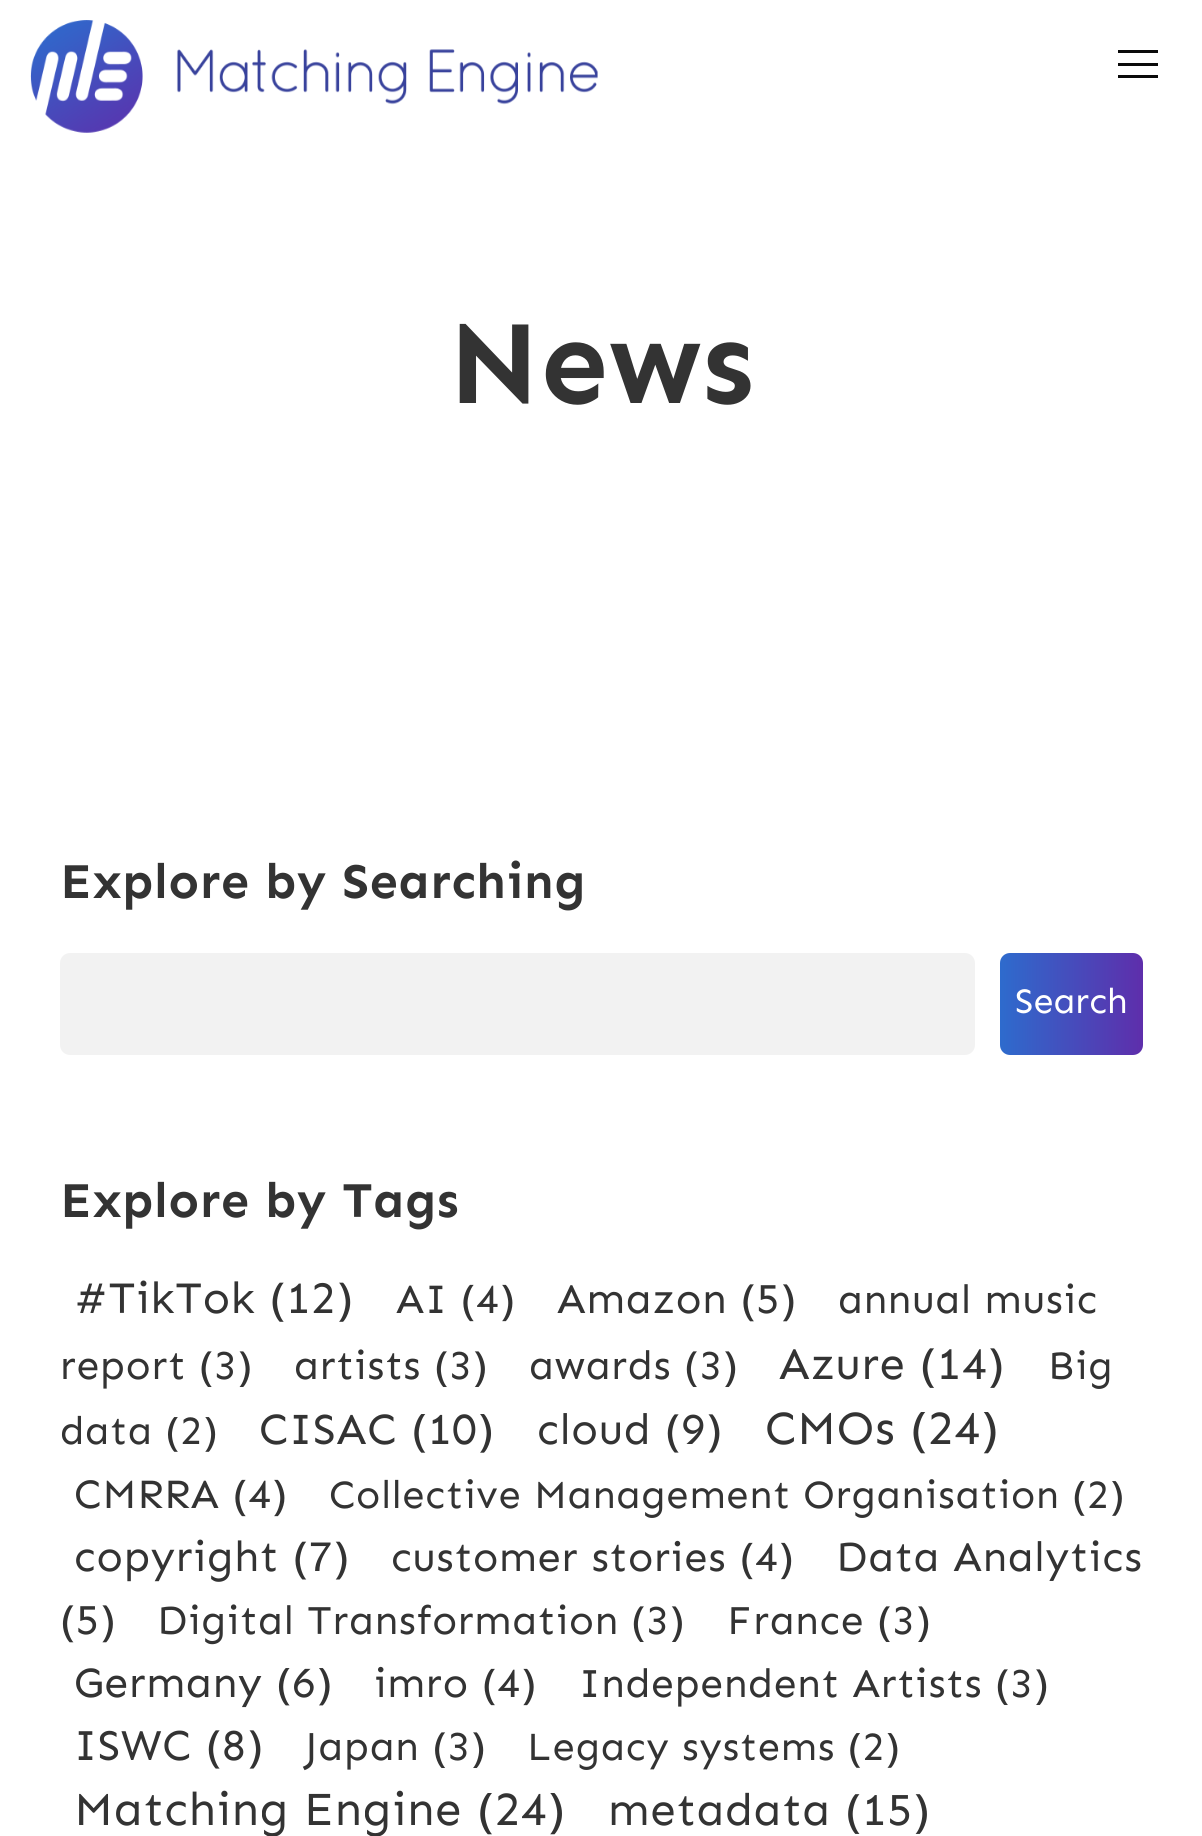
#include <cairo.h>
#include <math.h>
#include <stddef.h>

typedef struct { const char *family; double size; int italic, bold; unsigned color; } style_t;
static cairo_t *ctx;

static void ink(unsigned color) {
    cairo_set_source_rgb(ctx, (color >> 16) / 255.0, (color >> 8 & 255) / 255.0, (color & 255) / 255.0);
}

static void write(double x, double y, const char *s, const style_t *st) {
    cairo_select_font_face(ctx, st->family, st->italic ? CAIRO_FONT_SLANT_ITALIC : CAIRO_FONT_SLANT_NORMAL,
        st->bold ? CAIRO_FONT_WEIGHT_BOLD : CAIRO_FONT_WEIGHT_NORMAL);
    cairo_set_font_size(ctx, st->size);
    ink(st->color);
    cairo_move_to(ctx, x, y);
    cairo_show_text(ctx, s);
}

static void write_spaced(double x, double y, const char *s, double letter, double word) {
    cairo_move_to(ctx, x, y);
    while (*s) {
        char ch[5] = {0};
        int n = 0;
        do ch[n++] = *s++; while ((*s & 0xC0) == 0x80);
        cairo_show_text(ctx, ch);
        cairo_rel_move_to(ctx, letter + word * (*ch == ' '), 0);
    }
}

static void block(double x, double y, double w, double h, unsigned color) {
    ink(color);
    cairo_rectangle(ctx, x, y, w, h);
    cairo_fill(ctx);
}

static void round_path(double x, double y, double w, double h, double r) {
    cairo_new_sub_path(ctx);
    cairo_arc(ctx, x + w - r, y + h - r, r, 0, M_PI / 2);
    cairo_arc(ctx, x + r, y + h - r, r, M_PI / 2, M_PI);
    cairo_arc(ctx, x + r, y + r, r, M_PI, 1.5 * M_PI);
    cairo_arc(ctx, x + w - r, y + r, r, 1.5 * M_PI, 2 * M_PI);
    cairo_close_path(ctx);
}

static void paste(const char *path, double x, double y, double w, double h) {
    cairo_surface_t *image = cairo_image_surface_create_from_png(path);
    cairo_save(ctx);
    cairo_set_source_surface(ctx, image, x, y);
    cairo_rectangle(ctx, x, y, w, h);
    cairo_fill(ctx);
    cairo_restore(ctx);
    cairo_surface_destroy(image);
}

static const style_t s1 = {"Sen", 36, 0, 0, 0xffffff};

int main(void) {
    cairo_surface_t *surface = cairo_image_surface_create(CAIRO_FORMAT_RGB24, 1202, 1836);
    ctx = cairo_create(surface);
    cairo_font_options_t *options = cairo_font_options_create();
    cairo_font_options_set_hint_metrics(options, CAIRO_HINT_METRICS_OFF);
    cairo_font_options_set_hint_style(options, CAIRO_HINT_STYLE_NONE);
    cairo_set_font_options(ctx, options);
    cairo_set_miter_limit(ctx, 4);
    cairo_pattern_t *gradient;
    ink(0xffffff);
    cairo_paint(ctx);
    paste("pic1.png", 30, 20, 568, 113);
    block(1118, 50, 40, 3, 0x0a0a0a);
    block(1118, 63, 40, 3, 0x0a0a0a);
    block(1118, 75, 40, 3, 0x0a0a0a);
    cairo_select_font_face(ctx, "Sen", CAIRO_FONT_SLANT_NORMAL, CAIRO_FONT_WEIGHT_BOLD);
    cairo_set_font_size(ctx, 120);
    ink(0x333333);
    write_spaced(448, 403, "News", 0.75, 0);
    cairo_set_font_size(ctx, 50);
    write_spaced(60, 898, "Explore by Searching", 0.75, 0);
    ink(0xf2f2f2);
    round_path(60, 953, 915, 102, 10);
    cairo_fill(ctx);
    gradient = cairo_pattern_create_linear(1000, 1004, 1143, 1004);
    cairo_pattern_add_color_stop_rgba(gradient, 0, 0.18, 0.42, 0.804, 1);
    cairo_pattern_add_color_stop_rgba(gradient, 1, 0.369, 0.18, 0.671, 1);
    cairo_set_source(ctx, gradient);
    cairo_pattern_destroy(gradient);
    round_path(1000, 953, 143, 102, 10);
    cairo_fill(ctx);
    write(1015, 1013, "Search", &s1);
    cairo_select_font_face(ctx, "Sen", CAIRO_FONT_SLANT_NORMAL, CAIRO_FONT_WEIGHT_BOLD);
    cairo_set_font_size(ctx, 50);
    ink(0x333333);
    write_spaced(60, 1217, "Explore by Tags", 0.75, 0);
    cairo_select_font_face(ctx, "Sen", CAIRO_FONT_SLANT_NORMAL, CAIRO_FONT_WEIGHT_NORMAL);
    cairo_set_font_size(ctx, 45);
    write_spaced(74, 1313, "#TikTok (12)", 0.75, 0);
    cairo_set_font_size(ctx, 41.75);
    write_spaced(396, 1313, "AI (4)", 0.75, 0);
    cairo_set_font_size(ctx, 42.5);
    write_spaced(557, 1313, "Amazon (5)", 0.75, 0);
    cairo_set_font_size(ctx, 41);
    write_spaced(838, 1313, "annual music", 0.75, 0);
    write_spaced(60, 1379, "report (3)", 0.75, 0);
    write_spaced(294, 1379, "artists (3)", 0.75, 0);
    write_spaced(529, 1379, "awards (3)", 0.75, 0);
    cairo_set_font_size(ctx, 45.5);
    write_spaced(779, 1379, "Azure (14)", 0.75, 0);
    cairo_set_font_size(ctx, 40);
    write_spaced(1048, 1379, "Big", 0.75, 0);
    write_spaced(60, 1444, "data (2)", 0.75, 0);
    cairo_set_font_size(ctx, 44.5);
    write_spaced(259, 1444, "CISAC (10)", 0.75, 0);
    cairo_set_font_size(ctx, 44);
    write_spaced(537, 1444, "cloud (9)", 0.75, 0);
    cairo_set_font_size(ctx, 47.5);
    write_spaced(765, 1444, "CMOs (24)", 0.75, 0);
    cairo_set_font_size(ctx, 41.75);
    write_spaced(74, 1508, "CMRRA (4)", 0.75, 0);
    cairo_set_font_size(ctx, 40);
    write_spaced(329, 1508, "Collective Management Organisation (2)", 0.75, 0);
    cairo_set_font_size(ctx, 43.5);
    write_spaced(74, 1571, "copyright (7)", 0.75, 0);
    cairo_set_font_size(ctx, 41.75);
    write_spaced(391, 1571, "customer stories (4)", 0.75, 0);
    cairo_set_font_size(ctx, 42.5);
    write_spaced(836, 1571, "Data Analytics", 0.75, 0);
    write_spaced(60, 1634, "(5)", 0.75, 0);
    cairo_set_font_size(ctx, 41);
    write_spaced(157, 1634, "Digital Transformation", 0.75, 0);
    write_spaced(631, 1634, "(3)", 0.75, 0);
    write_spaced(727, 1634, "France (3)", 0.75, 0);
    cairo_set_font_size(ctx, 43);
    write_spaced(74, 1697, "Germany (6)", 0.75, 0);
    cairo_set_font_size(ctx, 41.75);
    write_spaced(374, 1697, "imro (4)", 0.75, 0);
    cairo_set_font_size(ctx, 41);
    write_spaced(579, 1697, "Independent Artists (3)", 0.75, 0);
    cairo_set_font_size(ctx, 44);
    write_spaced(74, 1760, "ISWC (8)", 0.75, 0);
    cairo_set_font_size(ctx, 41);
    write_spaced(305, 1760, "Japan (3)", 0.75, 0);
    cairo_set_font_size(ctx, 40);
    write_spaced(527, 1760, "Legacy systems (2)", 0.75, 0);
    cairo_set_font_size(ctx, 47.5);
    write_spaced(74, 1825, "Matching Engine (24)", 0.75, 0);
    cairo_set_font_size(ctx, 45.75);
    write_spaced(608, 1825, "metadata (15)", 0.75, 0);
    cairo_surface_write_to_png(surface, "screenshot.png");
    cairo_font_options_destroy(options);
    cairo_destroy(ctx);
    cairo_surface_destroy(surface);
    return 0;
}
